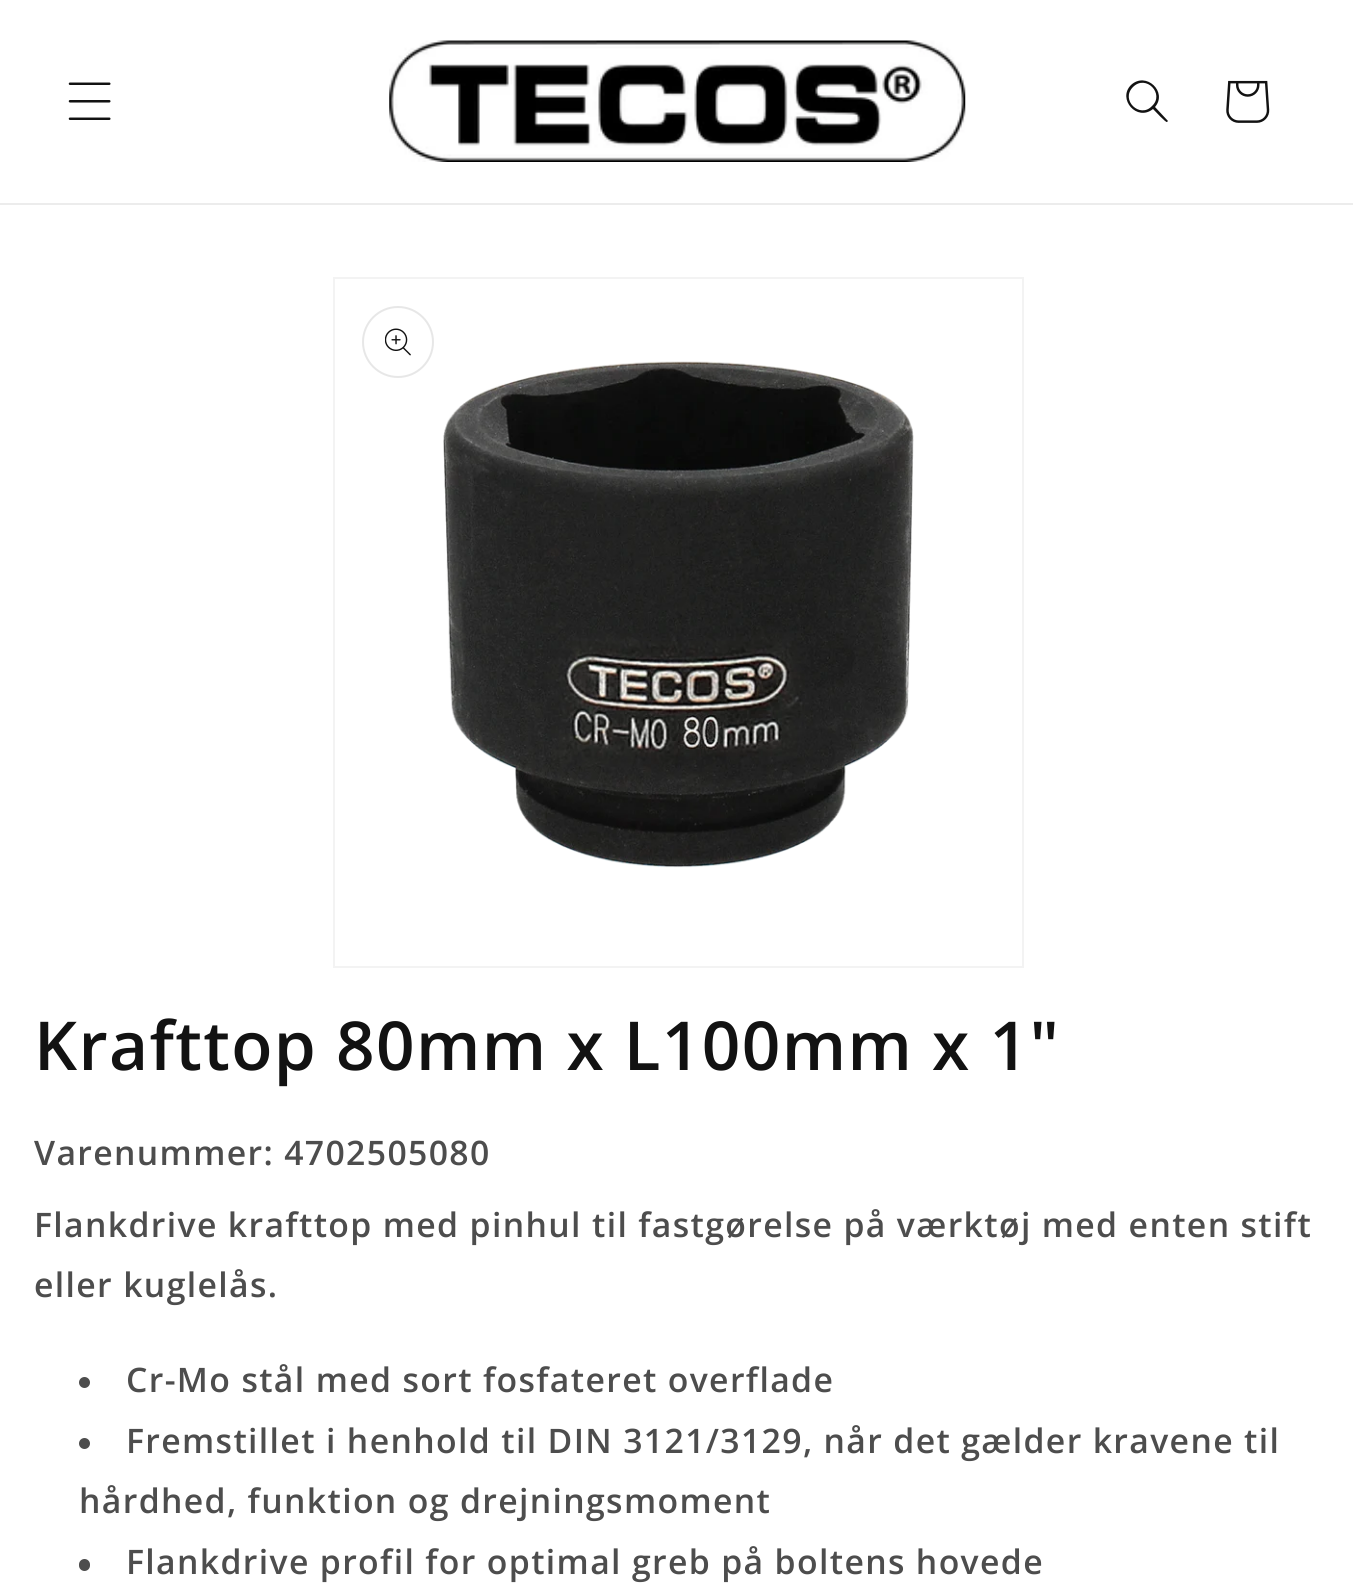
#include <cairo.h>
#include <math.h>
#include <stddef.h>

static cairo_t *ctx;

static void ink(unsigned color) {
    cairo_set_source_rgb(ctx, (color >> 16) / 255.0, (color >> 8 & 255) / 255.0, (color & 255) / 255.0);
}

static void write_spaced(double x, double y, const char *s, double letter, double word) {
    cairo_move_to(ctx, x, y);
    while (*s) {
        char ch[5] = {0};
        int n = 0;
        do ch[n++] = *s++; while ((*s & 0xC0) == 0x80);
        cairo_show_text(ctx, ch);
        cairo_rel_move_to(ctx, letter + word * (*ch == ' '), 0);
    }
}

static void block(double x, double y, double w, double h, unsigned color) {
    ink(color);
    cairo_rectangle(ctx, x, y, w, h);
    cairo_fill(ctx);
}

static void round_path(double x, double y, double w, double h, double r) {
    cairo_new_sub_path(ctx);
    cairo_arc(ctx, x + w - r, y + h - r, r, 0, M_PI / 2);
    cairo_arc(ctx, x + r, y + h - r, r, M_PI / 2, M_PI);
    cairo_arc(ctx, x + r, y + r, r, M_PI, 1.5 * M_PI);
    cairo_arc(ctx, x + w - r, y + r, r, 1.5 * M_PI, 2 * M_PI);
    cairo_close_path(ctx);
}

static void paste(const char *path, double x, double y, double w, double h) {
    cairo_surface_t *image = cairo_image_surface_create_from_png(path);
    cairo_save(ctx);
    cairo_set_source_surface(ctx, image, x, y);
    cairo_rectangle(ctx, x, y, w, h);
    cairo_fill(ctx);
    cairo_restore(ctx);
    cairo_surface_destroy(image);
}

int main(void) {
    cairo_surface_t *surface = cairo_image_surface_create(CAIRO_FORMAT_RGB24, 1353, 1585);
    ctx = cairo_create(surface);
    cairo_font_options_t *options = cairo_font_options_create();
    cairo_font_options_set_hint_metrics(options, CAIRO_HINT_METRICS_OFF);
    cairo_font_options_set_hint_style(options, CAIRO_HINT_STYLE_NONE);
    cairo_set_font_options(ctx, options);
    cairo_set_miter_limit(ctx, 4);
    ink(0xffffff);
    cairo_paint(ctx);
    block(0, 203, 1353, 2, 0xececec);
    paste("pic1.png", 68, 82, 43, 38);
    paste("pic2.png", 389, 40, 577, 122);
    ink(0x121212);
    cairo_set_fill_rule(ctx, CAIRO_FILL_RULE_EVEN_ODD);
    cairo_new_path(ctx);
    cairo_move_to(ctx, 1152, 106);
    cairo_curve_to(ctx, 1140, 119, 1120, 100, 1133, 87);
    cairo_curve_to(ctx, 1146, 74, 1165, 94, 1152, 106);
    cairo_close_path(ctx);
    cairo_move_to(ctx, 1153, 109);
    cairo_curve_to(ctx, 1137, 122, 1117, 99, 1131, 85);
    cairo_curve_to(ctx, 1146, 71, 1168, 92, 1155, 107);
    cairo_line_to(ctx, 1168, 121);
    cairo_line_to(ctx, 1167, 122);
    cairo_curve_to(ctx, 1166, 123, 1155, 111, 1153, 109);
    cairo_close_path(ctx);
    cairo_fill(ctx);
    paste("pic3.png", 1226, 80, 44, 43);
    cairo_rectangle(ctx, 334, 278, 689, 689);
    ink(0xf3f3f3);
    cairo_stroke(ctx);
    cairo_arc(ctx, 398, 342, 35, 0, 2 * M_PI);
    ink(0xe7e7e7);
    cairo_stroke(ctx);
    paste("pic4.png", 385, 328, 26, 28);
    paste("pic5.png", 443, 361, 471, 507);
    cairo_select_font_face(ctx, "Open Sans SemiBold", CAIRO_FONT_SLANT_NORMAL, CAIRO_FONT_WEIGHT_NORMAL);
    cairo_set_font_size(ctx, 67.5);
    ink(0x121212);
    write_spaced(34, 1070, "Krafttop 80mm x L100mm x 1\"", 1.35, 0);
    cairo_set_font_size(ctx, 33.75);
    ink(0x4d4d4d);
    write_spaced(34, 1165, "Varenummer: 4702505080", 1.35, 0);
    write_spaced(34, 1237, "Flankdrive krafttop med pinhul til fastgørelse på værktøj med enten stift", 1.35, 0);
    write_spaced(34, 1297, "eller kuglelås.", 1.35, 0);
    cairo_new_path(ctx);
    cairo_arc(ctx, 84.5, 1382.5, 5.5, 0, 2 * M_PI);
    cairo_fill(ctx);
    write_spaced(126, 1392, "Cr-Mo stål med sort fosfateret overflade", 1.35, 0);
    cairo_new_path(ctx);
    cairo_arc(ctx, 84.5, 1443.5, 5.5, 0, 2 * M_PI);
    cairo_fill(ctx);
    write_spaced(126, 1453, "Fremstillet i henhold til DIN 3121/3129, når det gælder kravene til", 1.35, 0);
    write_spaced(79, 1513, "hårdhed, funktion og drejningsmoment", 1.35, 0);
    round_path(79, 1559, 11, 12, 5.5);
    cairo_fill(ctx);
    write_spaced(126, 1574, "Flankdrive profil for optimal greb på boltens hovede", 1.35, 0);
    cairo_surface_write_to_png(surface, "screenshot.png");
    cairo_font_options_destroy(options);
    cairo_destroy(ctx);
    cairo_surface_destroy(surface);
    return 0;
}
